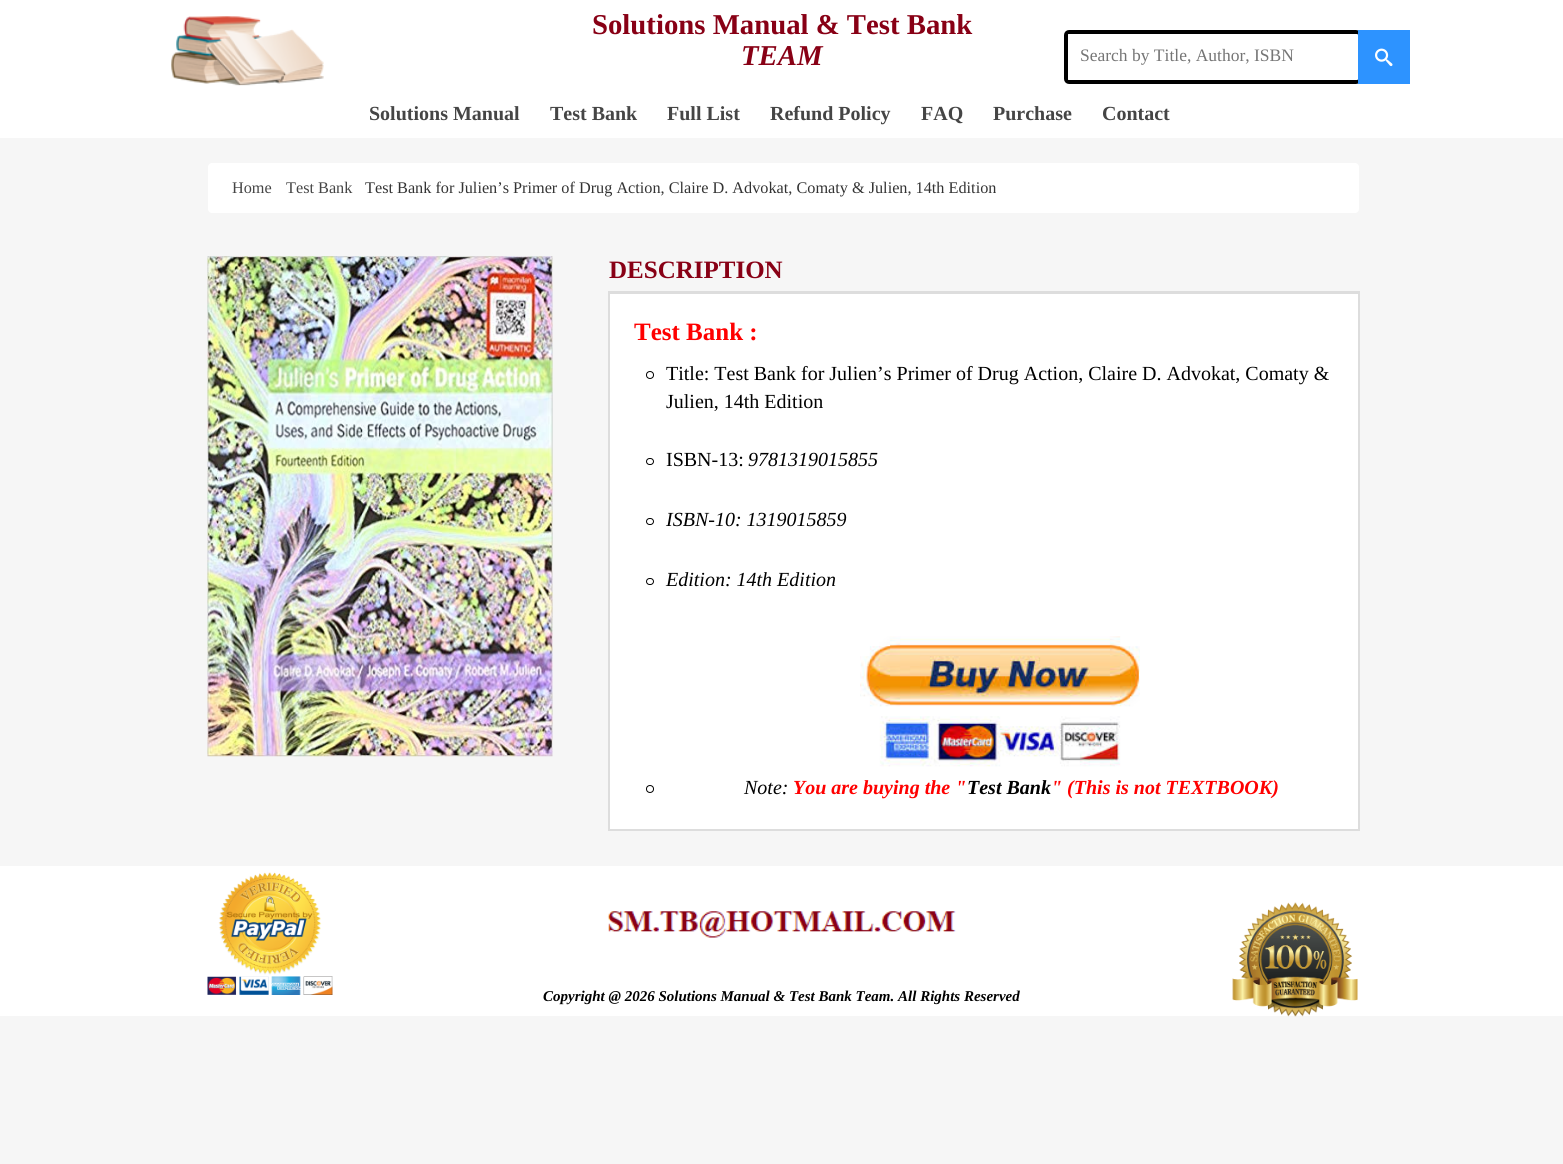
#include <cairo.h>
#include <math.h>
#include <stddef.h>

typedef struct { const char *family; double size; int italic, bold; unsigned color; } style_t;
static cairo_t *ctx;

static void ink(unsigned color) {
    cairo_set_source_rgb(ctx, (color >> 16) / 255.0, (color >> 8 & 255) / 255.0, (color & 255) / 255.0);
}

static void write(double x, double y, const char *s, const style_t *st) {
    cairo_select_font_face(ctx, st->family, st->italic ? CAIRO_FONT_SLANT_ITALIC : CAIRO_FONT_SLANT_NORMAL,
        st->bold ? CAIRO_FONT_WEIGHT_BOLD : CAIRO_FONT_WEIGHT_NORMAL);
    cairo_set_font_size(ctx, st->size);
    ink(st->color);
    cairo_move_to(ctx, x, y);
    cairo_show_text(ctx, s);
}

static void block(double x, double y, double w, double h, unsigned color) {
    ink(color);
    cairo_rectangle(ctx, x, y, w, h);
    cairo_fill(ctx);
}

static void round_path(double x, double y, double w, double h, double r) {
    cairo_new_sub_path(ctx);
    cairo_arc(ctx, x + w - r, y + h - r, r, 0, M_PI / 2);
    cairo_arc(ctx, x + r, y + h - r, r, M_PI / 2, M_PI);
    cairo_arc(ctx, x + r, y + r, r, M_PI, 1.5 * M_PI);
    cairo_arc(ctx, x + w - r, y + r, r, 1.5 * M_PI, 2 * M_PI);
    cairo_close_path(ctx);
}

static void paste(const char *path, double x, double y, double w, double h) {
    cairo_surface_t *image = cairo_image_surface_create_from_png(path);
    cairo_save(ctx);
    cairo_set_source_surface(ctx, image, x, y);
    cairo_rectangle(ctx, x, y, w, h);
    cairo_fill(ctx);
    cairo_restore(ctx);
    cairo_surface_destroy(image);
}

static const style_t s1 = {"Liberation Serif", 28.75, 0, 1, 0x880015};
static const style_t s2 = {"Liberation Serif", 28.75, 1, 1, 0x880015};
static const style_t s3 = {"Liberation Serif", 17.5, 0, 0, 0x757575};
static const style_t s4 = {"Liberation Serif", 20, 0, 1, 0x454545};
static const style_t s5 = {"Liberation Serif", 16.25, 0, 0, 0x454545};
static const style_t s6 = {"Liberation Serif", 16.25, 0, 0, 0x333333};
static const style_t s7 = {"Liberation Serif", 25, 0, 1, 0x880015};
static const style_t s8 = {"Liberation Serif", 25, 0, 1, 0xff0000};
static const style_t s9 = {"Liberation Serif", 20, 0, 0, 0x000000};
static const style_t s10 = {"Liberation Serif", 20, 1, 0, 0x000000};
static const style_t s11 = {"Liberation Serif", 20, 1, 1, 0xff0000};
static const style_t s12 = {"Liberation Serif", 20, 1, 1, 0x000000};
static const style_t s13 = {"Liberation Serif", 15, 1, 1, 0x000000};

int main(void) {
    cairo_surface_t *surface = cairo_image_surface_create(CAIRO_FORMAT_RGB24, 1563, 1164);
    ctx = cairo_create(surface);
    cairo_font_options_t *options = cairo_font_options_create();
    cairo_font_options_set_hint_metrics(options, CAIRO_HINT_METRICS_OFF);
    cairo_font_options_set_hint_style(options, CAIRO_HINT_STYLE_NONE);
    cairo_set_font_options(ctx, options);
    cairo_set_miter_limit(ctx, 4);
    ink(0xf6f6f6);
    cairo_paint(ctx);
    block(0, 0, 1563, 138, 0xffffff);
    paste("pic1.png", 171, 16, 153, 70);
    write(592, 34, "Solutions Manual & Test Bank", &s1);
    write(741, 65, "TEAM", &s2);
    round_path(1066, 32, 293, 50, 3);
    ink(0x000000);
    cairo_set_line_width(ctx, 4);
    cairo_stroke(ctx);
    ink(0xffffff);
    round_path(1068, 34, 290, 46, 1);
    cairo_fill(ctx);
    write(1080, 61, "Search by Title, Author, ISBN", &s3);
    block(1358, 30, 52, 54, 0x2d93ff);
    paste("pic2.png", 1375, 48, 18, 19);
    write(369, 120, "Solutions Manual", &s4);
    write(550, 120, "Test Bank", &s4);
    write(667, 120, "Full List", &s4);
    write(770, 120, "Refund Policy", &s4);
    write(921, 120, "FAQ", &s4);
    write(993, 120, "Purchase", &s4);
    write(1102, 120, "Contact", &s4);
    ink(0xffffff);
    round_path(208, 163, 1151, 50, 4);
    cairo_fill(ctx);
    write(232, 193, "Home", &s5);
    write(286, 193, "Test Bank", &s5);
    write(365, 193, "Test Bank for Julien’s Primer of Drug Action, Claire D. Advokat, Comaty & Julien, 14th Edition", &s6);
    paste("pic3.png", 207, 256, 346, 501);
    write(609, 278, "DESCRIPTION", &s7);
    cairo_rectangle(ctx, 609.5, 292.5, 749, 537);
    ink(0xdddddd);
    cairo_set_line_width(ctx, 3);
    cairo_stroke(ctx);
    block(610, 294, 748, 535, 0xffffff);
    write(634, 340, "Test Bank :", &s8);
    cairo_new_path(ctx);
    cairo_arc(ctx, 650, 375, 3.5, 0, 2 * M_PI);
    ink(0x000000);
    cairo_set_line_width(ctx, 1);
    cairo_stroke(ctx);
    write(666, 380, "Title: Test Bank for Julien’s Primer of Drug Action, Claire D. Advokat, Comaty &", &s9);
    write(666, 408, "Julien, 14th Edition", &s9);
    round_path(646.5, 458.5, 7, 6, 3);
    cairo_stroke(ctx);
    write(666, 466, "ISBN-13:", &s9);
    write(748, 466, "9781319015855", &s10);
    round_path(646.5, 518.5, 7, 6, 3);
    cairo_stroke(ctx);
    write(666, 526, "ISBN-10: 1319015859", &s10);
    round_path(646.5, 578.5, 7, 6, 3);
    cairo_stroke(ctx);
    write(666, 586, "Edition: 14th Edition", &s10);
    paste("pic4.png", 860, 636, 280, 131);
    cairo_arc(ctx, 650, 789, 3.5, 0, 2 * M_PI);
    cairo_stroke(ctx);
    write(744, 794, "Note:", &s10);
    write(793, 794, "You are buying the \"", &s11);
    write(967, 794, "Test Bank", &s12);
    write(1051, 794, "\" (This is not TEXTBOOK)", &s11);
    block(0, 866, 1563, 150, 0xffffff);
    paste("pic5.png", 207, 872, 126, 123);
    paste("pic6.png", 607, 911, 349, 27);
    write(543, 1001, "Copyright @ 2026 Solutions Manual & Test Bank Team. All Rights Reserved", &s13);
    paste("pic7.png", 1232, 902, 126, 115);
    cairo_surface_write_to_png(surface, "screenshot.png");
    cairo_font_options_destroy(options);
    cairo_destroy(ctx);
    cairo_surface_destroy(surface);
    return 0;
}
